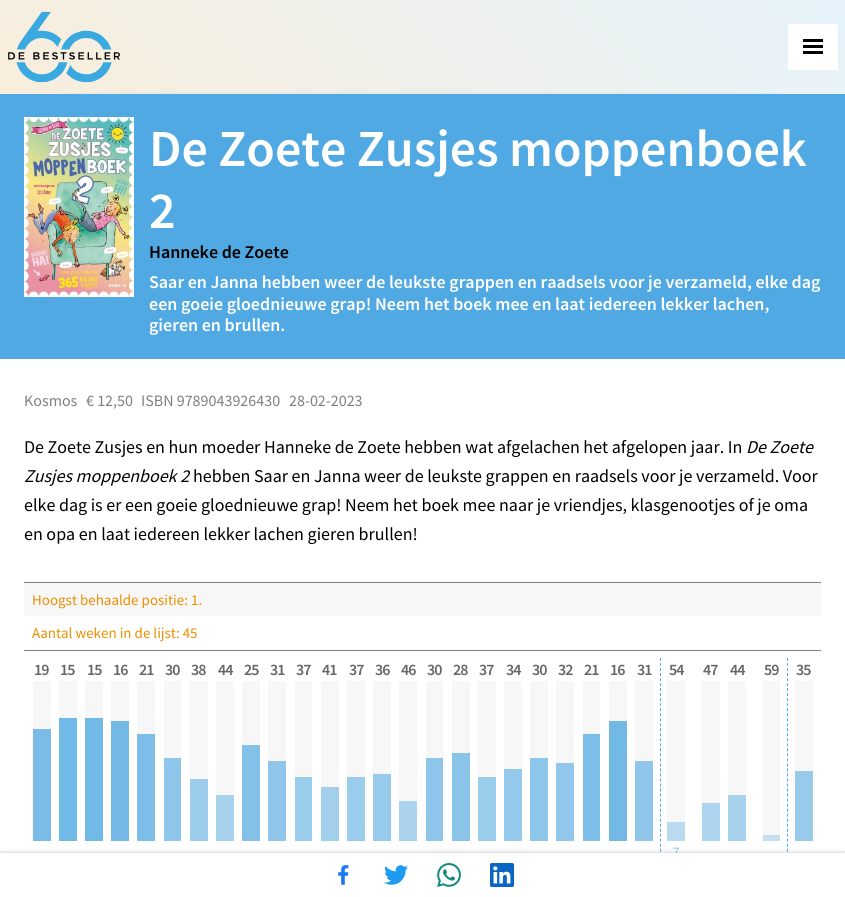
#include <cairo.h>
#include <math.h>
#include <stddef.h>

typedef struct { const char *family; double size; int italic, bold; unsigned color; } style_t;
static cairo_t *ctx;

static void ink(unsigned color) {
    cairo_set_source_rgb(ctx, (color >> 16) / 255.0, (color >> 8 & 255) / 255.0, (color & 255) / 255.0);
}

static void write(double x, double y, const char *s, const style_t *st) {
    cairo_select_font_face(ctx, st->family, st->italic ? CAIRO_FONT_SLANT_ITALIC : CAIRO_FONT_SLANT_NORMAL,
        st->bold ? CAIRO_FONT_WEIGHT_BOLD : CAIRO_FONT_WEIGHT_NORMAL);
    cairo_set_font_size(ctx, st->size);
    ink(st->color);
    cairo_move_to(ctx, x, y);
    cairo_show_text(ctx, s);
}

static void write_spaced(double x, double y, const char *s, double letter, double word) {
    cairo_move_to(ctx, x, y);
    while (*s) {
        char ch[5] = {0};
        int n = 0;
        do ch[n++] = *s++; while ((*s & 0xC0) == 0x80);
        cairo_show_text(ctx, ch);
        cairo_rel_move_to(ctx, letter + word * (*ch == ' '), 0);
    }
}

static void block(double x, double y, double w, double h, unsigned color) {
    ink(color);
    cairo_rectangle(ctx, x, y, w, h);
    cairo_fill(ctx);
}

static void round_path(double x, double y, double w, double h, double r) {
    cairo_new_sub_path(ctx);
    cairo_arc(ctx, x + w - r, y + h - r, r, 0, M_PI / 2);
    cairo_arc(ctx, x + r, y + h - r, r, M_PI / 2, M_PI);
    cairo_arc(ctx, x + r, y + r, r, M_PI, 1.5 * M_PI);
    cairo_arc(ctx, x + w - r, y + r, r, 1.5 * M_PI, 2 * M_PI);
    cairo_close_path(ctx);
}

static void blur_box(double x, double y, double w, double h, double r, double blur, double alpha) {
    cairo_push_group_with_content(ctx, CAIRO_CONTENT_ALPHA);
    cairo_set_operator(ctx, CAIRO_OPERATOR_SOURCE);
    for (int i = 15; i >= -15 && fmin(w, h) + blur * i / 3 > 0; i -= 2) {
        double e = blur * i / 6;
        cairo_set_source_rgba(ctx, 0, 0, 0, alpha * erfc((i - 1) / 8.5) / 2);
        round_path(x - e, y - e, w + 2 * e, h + 2 * e, fmax(0, fmin(r + e + blur * .6, fmin(w, h) / 2 + e)));
        cairo_fill(ctx);
    }
    cairo_pattern_t *soft = cairo_pop_group(ctx);
    cairo_mask(ctx, soft);
    cairo_pattern_destroy(soft);
}

static void paste(const char *path, double x, double y, double w, double h) {
    cairo_surface_t *image = cairo_image_surface_create_from_png(path);
    cairo_save(ctx);
    cairo_set_source_surface(ctx, image, x, y);
    cairo_rectangle(ctx, x, y, w, h);
    cairo_fill(ctx);
    cairo_restore(ctx);
    cairo_surface_destroy(image);
}

static const style_t s1 = {"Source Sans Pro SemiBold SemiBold", 52, 0, 0, 0xffffff};
static const style_t s2 = {"Source Sans Pro SemiBold SemiBold", 18, 0, 0, 0x000000};
static const style_t s3 = {"Source Sans Pro SemiBold SemiBold", 18, 0, 0, 0xffffff};
static const style_t s4 = {"Source Sans Pro", 16, 0, 0, 0x808080};
static const style_t s5 = {"Source Sans Pro", 18, 0, 0, 0x000000};
static const style_t s6 = {"Source Sans Pro", 18, 1, 0, 0x000000};
static const style_t s7 = {"Source Sans Pro", 15, 0, 0, 0xeb8f00};
static const style_t s8 = {"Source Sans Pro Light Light", 16, 0, 0, 0x50a9e2};

int main(void) {
    cairo_surface_t *surface = cairo_image_surface_create(CAIRO_FORMAT_RGB24, 845, 897);
    ctx = cairo_create(surface);
    cairo_font_options_t *options = cairo_font_options_create();
    cairo_font_options_set_hint_metrics(options, CAIRO_HINT_METRICS_OFF);
    cairo_font_options_set_hint_style(options, CAIRO_HINT_STYLE_NONE);
    cairo_set_font_options(ctx, options);
    cairo_set_miter_limit(ctx, 4);
    cairo_pattern_t *gradient;
    ink(0xffffff);
    cairo_paint(ctx);
    gradient = cairo_pattern_create_linear(188, 282, 657, -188);
    cairo_pattern_add_color_stop_rgba(gradient, 0, 0.973, 0.933, 0.863, 1);
    cairo_pattern_add_color_stop_rgba(gradient, 1, 0.902, 0.953, 0.984, 1);
    cairo_set_source(ctx, gradient);
    cairo_pattern_destroy(gradient);
    cairo_rectangle(ctx, 0, 0, 845, 94);
    cairo_fill(ctx);
    paste("pic1.png", 8, 11, 112, 72);
    block(788, 24, 50, 46, 0xffffff);
    block(803, 39, 20, 3, 0x000000);
    block(803, 45, 20, 3, 0x000000);
    block(803, 51, 20, 3, 0x000000);
    cairo_save(ctx);
    cairo_rectangle(ctx, 0, 0, 845, 94);
    cairo_clip(ctx);
    gradient = cairo_pattern_create_linear(423, 109, 423, 89);
    cairo_pattern_add_color_stop_rgba(gradient, 0, 0, 0, 0, 0.1);
    cairo_pattern_add_color_stop_rgba(gradient, 1, 0, 0, 0, 0);
    cairo_set_source(ctx, gradient);
    cairo_pattern_destroy(gradient);
    cairo_new_path(ctx);
    cairo_move_to(ctx, 422, 89);
    cairo_curve_to(ctx, 656, 89, 845, 93, 845, 99);
    cairo_line_to(ctx, 845, 109);
    cairo_line_to(ctx, 0, 109);
    cairo_line_to(ctx, 0, 99);
    cairo_curve_to(ctx, 0, 93, 189, 89, 422, 89);
    cairo_close_path(ctx);
    cairo_fill(ctx);
    cairo_restore(ctx);
    block(0, 94, 845, 265, 0x50a9e2);
    paste("pic2.png", 24, 117, 110, 180);
    write(149, 166, "De Zoete Zusjes moppenboek", &s1);
    write(149, 228, "2", &s1);
    write(149, 258, "Hanneke de Zoete", &s2);
    write(149, 288, "Saar en Janna hebben weer de leukste grappen en raadsels voor je verzameld, elke dag", &s3);
    write(149, 310, "een goeie gloednieuwe grap! Neem het boek mee en laat iedereen lekker lachen,", &s3);
    write(149, 331, "gieren en brullen.", &s3);
    write(24, 406, "Kosmos", &s4);
    write(86, 406, "€ 12,50", &s4);
    write(141, 406, "ISBN 9789043926430", &s4);
    write(289, 406, "28-02-2023", &s4);
    write(24, 453, "De Zoete Zusjes en hun moeder Hanneke de Zoete hebben wat afgelachen het afgelopen jaar. In", &s5);
    write(746, 453, "De Zoete", &s6);
    write(24, 482, "Zusjes moppenboek 2", &s6);
    write(193, 482, "hebben Saar en Janna weer de leukste grappen en raadsels voor je verzameld. Voor", &s5);
    write(24, 511, "elke dag is er een goeie gloednieuwe grap! Neem het boek mee naar je vriendjes, klasgenootjes of je oma", &s5);
    write(24, 540, "en opa en laat iedereen lekker lachen gieren brullen!", &s5);
    block(24, 582, 797, 1, 0x808080);
    block(24, 583, 797, 33, 0xf7f7f7);
    write(32, 605, "Hoogst behaalde positie: 1.", &s7);
    write(32, 638, "Aantal weken in de lijst: 45", &s7);
    block(24, 650, 797, 1, 0x808080);
    cairo_select_font_face(ctx, "Source Sans Pro SemiBold SemiBold", CAIRO_FONT_SLANT_NORMAL, CAIRO_FONT_WEIGHT_NORMAL);
    cairo_set_font_size(ctx, 16);
    ink(0x666666);
    write_spaced(34, 675, "19", -1, 0);
    block(33, 681, 18, 48, 0xf7f7f7);
    block(33, 729, 18, 112, 0x79bce7);
    ink(0x666666);
    write_spaced(60, 675, "15", -1, 0);
    block(59, 681, 18, 37, 0xf7f7f7);
    block(59, 718, 18, 123, 0x71b9e6);
    ink(0x666666);
    write_spaced(87, 675, "15", -1, 0);
    block(85, 681, 18, 37, 0xf7f7f7);
    block(85, 718, 18, 123, 0x71b9e6);
    ink(0x666666);
    write_spaced(113, 675, "16", -1, 0);
    block(111, 681, 18, 40, 0xf7f7f7);
    block(111, 721, 18, 120, 0x73b9e6);
    ink(0x666666);
    write_spaced(139, 675, "21", -1, 0);
    block(137, 681, 18, 53, 0xf7f7f7);
    block(137, 734, 18, 107, 0x7dbee8);
    ink(0x666666);
    write_spaced(165, 675, "30", -1, 0);
    block(164, 681, 17, 77, 0xf7f7f7);
    block(164, 758, 17, 83, 0x8dc6ea);
    ink(0x666666);
    write_spaced(191, 675, "38", -1, 0);
    block(190, 681, 18, 98, 0xf7f7f7);
    block(190, 779, 18, 62, 0x9ccdec);
    ink(0x666666);
    write_spaced(218, 675, "44", -1, 0);
    block(216, 681, 18, 114, 0xf7f7f7);
    block(216, 795, 18, 46, 0xa7d2ed);
    ink(0x666666);
    write_spaced(244, 675, "25", -1, 0);
    block(242, 681, 18, 64, 0xf7f7f7);
    block(242, 745, 18, 96, 0x84c1e9);
    ink(0x666666);
    write_spaced(270, 675, "31", -1, 0);
    block(268, 681, 18, 80, 0xf7f7f7);
    block(268, 761, 18, 80, 0x8fc6ea);
    ink(0x666666);
    write_spaced(296, 675, "37", -1, 0);
    block(295, 681, 17, 96, 0xf7f7f7);
    block(295, 777, 17, 64, 0x9acceb);
    ink(0x666666);
    write_spaced(322, 675, "41", -1, 0);
    block(321, 681, 18, 106, 0xf7f7f7);
    block(321, 787, 18, 54, 0xa2cfec);
    ink(0x666666);
    write_spaced(349, 675, "37", -1, 0);
    block(347, 681, 18, 96, 0xf7f7f7);
    block(347, 777, 18, 64, 0x9acceb);
    ink(0x666666);
    write_spaced(375, 675, "36", -1, 0);
    block(373, 681, 18, 93, 0xf7f7f7);
    block(373, 774, 18, 67, 0x98cbeb);
    ink(0x666666);
    write_spaced(401, 675, "46", -1, 0);
    block(399, 681, 18, 120, 0xf7f7f7);
    block(399, 801, 18, 40, 0xabd3ed);
    ink(0x666666);
    write_spaced(427, 675, "30", -1, 0);
    block(426, 681, 17, 77, 0xf7f7f7);
    block(426, 758, 17, 83, 0x8dc6ea);
    ink(0x666666);
    write_spaced(453, 675, "28", -1, 0);
    block(452, 681, 18, 72, 0xf7f7f7);
    block(452, 753, 18, 88, 0x8ac4e9);
    ink(0x666666);
    write_spaced(479, 675, "37", -1, 0);
    block(478, 681, 18, 96, 0xf7f7f7);
    block(478, 777, 18, 64, 0x9acceb);
    ink(0x666666);
    write_spaced(506, 675, "34", -1, 0);
    block(504, 681, 18, 88, 0xf7f7f7);
    block(504, 769, 18, 72, 0x95c9eb);
    ink(0x666666);
    write_spaced(532, 675, "30", -1, 0);
    block(530, 681, 18, 77, 0xf7f7f7);
    block(530, 758, 18, 83, 0x8dc6ea);
    ink(0x666666);
    write_spaced(558, 675, "32", -1, 0);
    block(556, 681, 18, 82, 0xf7f7f7);
    block(556, 763, 18, 78, 0x91c7ea);
    ink(0x666666);
    write_spaced(584, 675, "21", -1, 0);
    block(583, 681, 17, 53, 0xf7f7f7);
    block(583, 734, 17, 107, 0x7dbee8);
    ink(0x666666);
    write_spaced(610, 675, "16", -1, 0);
    block(609, 681, 18, 40, 0xf7f7f7);
    block(609, 721, 18, 120, 0x73b9e6);
    ink(0x666666);
    write_spaced(637, 675, "31", -1, 0);
    block(635, 681, 18, 80, 0xf7f7f7);
    block(635, 761, 18, 80, 0x8fc6ea);
    cairo_new_path(ctx);
    cairo_move_to(ctx, 660.5, 658);
    cairo_line_to(ctx, 660.5, 882);
    ink(0x50a9e2);
    cairo_set_line_width(ctx, 1);
    cairo_set_dash(ctx, (double[]){3, 2.02}, 2, 0);
    cairo_stroke(ctx);
    ink(0x666666);
    write_spaced(669, 675, "54", -1, 0);
    block(667, 681, 18, 141, 0xf7f7f7);
    block(667, 822, 18, 19, 0xbadaef);
    write(672, 858, "7", &s8);
    cairo_select_font_face(ctx, "Source Sans Pro SemiBold SemiBold", CAIRO_FONT_SLANT_NORMAL, CAIRO_FONT_WEIGHT_NORMAL);
    ink(0x666666);
    write_spaced(703, 675, "47", -1, 0);
    block(702, 681, 18, 122, 0xf7f7f7);
    block(702, 803, 18, 38, 0xadd4ee);
    ink(0x666666);
    write_spaced(730, 675, "44", -1, 0);
    block(728, 681, 18, 114, 0xf7f7f7);
    block(728, 795, 18, 46, 0xa7d2ed);
    ink(0x666666);
    write_spaced(764, 675, "59", -1, 0);
    block(763, 681, 17, 154, 0xf7f7f7);
    block(763, 835, 17, 6, 0xc3dff0);
    cairo_new_path(ctx);
    cairo_move_to(ctx, 787.5, 658);
    cairo_line_to(ctx, 787.5, 882);
    ink(0x50a9e2);
    cairo_stroke(ctx);
    ink(0x666666);
    write_spaced(796, 675, "35", -1, 0);
    block(795, 681, 18, 90, 0xf7f7f7);
    block(795, 771, 18, 70, 0x97caeb);
    ink(0x000000);
    blur_box(0, 853, 845, 44, 0, 2.5, 0.25);
    block(0, 853, 845, 44, 0xffffff);
    paste("pic3.png", 338, 865, 11, 20);
    paste("pic4.png", 384, 865, 24, 20);
    paste("pic5.png", 437, 863, 24, 24);
    paste("pic6.png", 490, 863, 24, 24);
    cairo_surface_write_to_png(surface, "screenshot.png");
    cairo_font_options_destroy(options);
    cairo_destroy(ctx);
    cairo_surface_destroy(surface);
    return 0;
}
